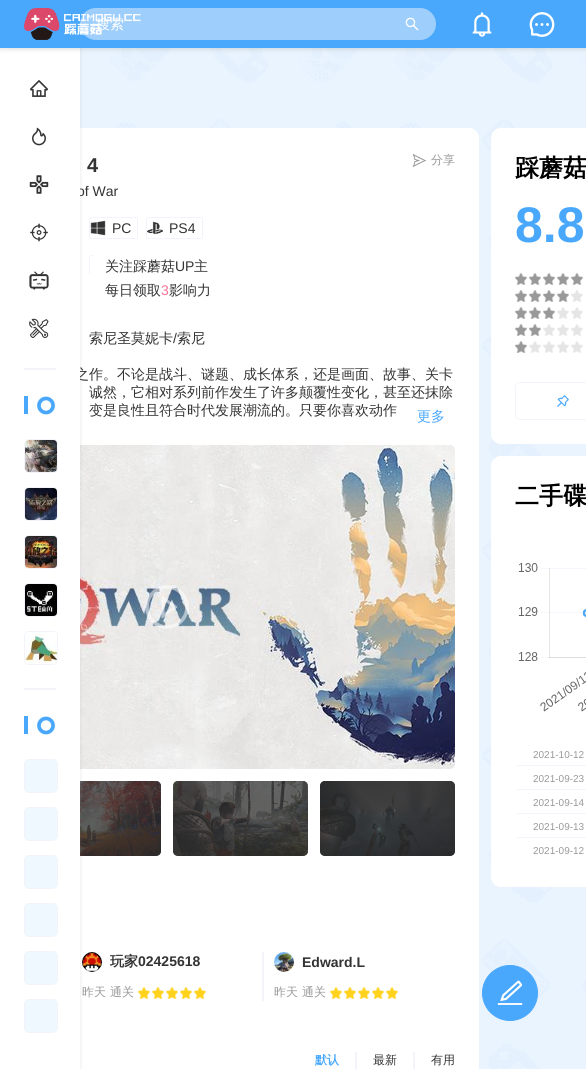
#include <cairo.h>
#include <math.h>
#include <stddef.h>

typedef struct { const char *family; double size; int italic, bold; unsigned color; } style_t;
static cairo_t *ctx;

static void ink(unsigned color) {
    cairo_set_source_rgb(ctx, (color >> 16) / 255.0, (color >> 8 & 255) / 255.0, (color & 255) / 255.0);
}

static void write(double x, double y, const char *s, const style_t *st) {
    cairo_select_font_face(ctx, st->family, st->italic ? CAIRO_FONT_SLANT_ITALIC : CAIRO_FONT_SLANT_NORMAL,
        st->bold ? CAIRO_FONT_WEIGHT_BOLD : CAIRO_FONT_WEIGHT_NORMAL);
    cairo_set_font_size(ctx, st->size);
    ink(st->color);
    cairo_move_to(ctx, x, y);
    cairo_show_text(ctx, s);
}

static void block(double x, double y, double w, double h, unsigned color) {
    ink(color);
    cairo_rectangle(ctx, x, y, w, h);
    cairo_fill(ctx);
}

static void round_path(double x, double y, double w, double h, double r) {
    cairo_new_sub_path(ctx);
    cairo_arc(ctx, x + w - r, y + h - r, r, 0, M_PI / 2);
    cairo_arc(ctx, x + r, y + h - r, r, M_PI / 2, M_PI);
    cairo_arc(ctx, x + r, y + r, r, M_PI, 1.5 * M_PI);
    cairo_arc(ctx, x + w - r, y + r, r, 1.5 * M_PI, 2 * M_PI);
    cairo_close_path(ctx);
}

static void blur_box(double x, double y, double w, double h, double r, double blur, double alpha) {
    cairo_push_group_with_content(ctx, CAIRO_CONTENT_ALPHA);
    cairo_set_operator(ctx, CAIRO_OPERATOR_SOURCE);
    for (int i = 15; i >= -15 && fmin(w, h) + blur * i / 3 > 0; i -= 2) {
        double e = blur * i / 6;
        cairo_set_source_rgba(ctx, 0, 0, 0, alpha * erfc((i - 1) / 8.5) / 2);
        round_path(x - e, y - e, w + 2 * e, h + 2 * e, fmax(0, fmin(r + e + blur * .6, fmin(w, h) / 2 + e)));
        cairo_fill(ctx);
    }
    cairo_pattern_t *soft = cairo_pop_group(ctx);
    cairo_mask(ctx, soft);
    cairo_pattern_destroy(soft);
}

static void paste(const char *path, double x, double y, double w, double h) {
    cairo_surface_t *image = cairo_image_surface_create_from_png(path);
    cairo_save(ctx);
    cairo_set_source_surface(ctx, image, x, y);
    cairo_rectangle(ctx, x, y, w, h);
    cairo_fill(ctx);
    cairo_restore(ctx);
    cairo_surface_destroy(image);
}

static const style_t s1 = {"Liberation Sans", 14, 0, 0, 0x333333};
static const style_t s2 = {"WenQuanYi Zen Hei Medium", 14, 0, 0, 0x333333};
static const style_t s3 = {"WenQuanYi Zen Hei Medium", 14, 0, 0, 0xffffff};
static const style_t s4 = {"Liberation Sans", 20, 0, 1, 0x333333};
static const style_t s5 = {"WenQuanYi Zen Hei Medium", 12, 0, 0, 0x999999};
static const style_t s6 = {"WenQuanYi Zen Hei Medium", 14, 0, 0, 0x49a8fc};
static const style_t s7 = {"WenQuanYi Zen Hei", 14, 0, 1, 0x333333};
static const style_t s8 = {"Liberation Sans", 14, 0, 1, 0x333333};
static const style_t s9 = {"WenQuanYi Zen Hei", 12, 0, 1, 0x49a8fc};
static const style_t s10 = {"WenQuanYi Zen Hei Medium", 12, 0, 0, 0x333333};
static const style_t s11 = {"WenQuanYi Zen Hei", 24, 0, 1, 0x000000};
static const style_t s12 = {"Liberation Sans", 50, 0, 1, 0x49a8fc};
static const style_t s13 = {"Liberation Sans", 10, 0, 0, 0x999999};
static const style_t s14 = {"Liberation Sans", 14, 0, 0, 0xfb7299};

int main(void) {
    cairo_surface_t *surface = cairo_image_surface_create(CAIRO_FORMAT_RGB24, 586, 1069);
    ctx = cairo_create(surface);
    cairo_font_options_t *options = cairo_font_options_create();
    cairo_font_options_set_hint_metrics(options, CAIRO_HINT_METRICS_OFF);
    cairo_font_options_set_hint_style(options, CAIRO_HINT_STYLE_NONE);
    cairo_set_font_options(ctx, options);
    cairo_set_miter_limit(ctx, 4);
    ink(0xffffff);
    cairo_paint(ctx);
    paste("pic1.png", 80, 48, 506, 1021);
    ink(0xffffff);
    round_path(-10, 128, 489, 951, 10);
    cairo_fill(ctx);
    write(77, 196, "of War", &s1);
    write(75, 379, "之作。不论是战斗、谜题、成长体系，还是画面、故事、关卡", &s2);
    paste("pic11.png", 80, 781, 81, 75);
    cairo_set_source_rgba(ctx, 0.2, 0.2, 0.2, 0.75);
    round_path(26, 781, 135, 75, 5);
    cairo_fill(ctx);
    paste("pic9.png", 80, 445, 375, 324);
    paste("pic14.png", 82, 952, 20, 20);
    ink(0x999999);
    blur_box(0, 0, 80, 1069, 0, 2, 0.25);
    block(0, 48, 80, 1021, 0xffffff);
    ink(0x999999);
    blur_box(0, 2, 586, 48, 0, 2, 0.25);
    block(0, 0, 586, 48, 0x49a8fc);
    ink(0x9ecefb);
    round_path(80, 8, 356, 32, 16);
    cairo_fill(ctx);
    write(96, 29, "搜索", &s3);
    paste("pic2.png", 24, 8, 117, 32);
    paste("pic3.png", 405, 17, 14, 14);
    paste("pic4.png", 472, 12, 20, 25);
    paste("pic5.png", 529, 12, 26, 25);
    write(87, 172, "4", &s4);
    paste("pic6.png", 412, 154, 14, 13);
    write(431, 164, "分享", &s5);
    round_path(89.5, 217.5, 48, 21, 1.5);
    ink(0xf2f4fa);
    cairo_set_line_width(ctx, 1);
    cairo_stroke(ctx);
    paste("pic7.png", 90, 220, 16, 16);
    write(112, 233, "PC", &s1);
    round_path(146.5, 217.5, 56, 21, 1.5);
    ink(0xf2f4fa);
    cairo_stroke(ctx);
    paste("pic8.png", 147, 221, 16, 14);
    write(169, 233, "PS4", &s1);
    round_path(89.5, 255.5, 41, 21, 1.5);
    ink(0xf2f4fa);
    cairo_stroke(ctx);
    write(89, 343, "索尼圣莫妮卡", &s2);
    write(173, 343, "/", &s1);
    write(177, 343, "索尼", &s2);
    write(89, 397, "诚然，它相对系列前作发生了许多颠覆性变化，甚至还抹除", &s2);
    write(89, 415, "变是良性且符合时代发展潮流的。只要你喜欢动作", &s2);
    write(417, 421, "更多", &s6);
    paste("pic10.png", 145, 585, 44, 44);
    paste("pic12.png", 173, 781, 135, 75);
    cairo_set_source_rgba(ctx, 0.2, 0.2, 0.2, 0.75);
    round_path(173, 781, 135, 75, 5);
    cairo_fill(ctx);
    paste("pic13.png", 320, 781, 135, 75);
    round_path(320, 781, 135, 75, 5);
    cairo_fill(ctx);
    write(110, 966, "玩家", &s7);
    write(138, 966, "02425618", &s8);
    write(82, 996, "昨天", &s5);
    write(110, 996, "通关", &s5);
    paste("pic15.png", 138, 987, 12, 12);
    paste("pic15.png", 152, 987, 12, 12);
    paste("pic16.png", 166, 987, 12, 12);
    paste("pic15.png", 180, 987, 12, 12);
    paste("pic15.png", 194, 987, 12, 12);
    block(262, 952, 2, 49, 0xf2f4fa);
    paste("pic17.png", 274, 952, 20, 20);
    write(302, 967, "Edward.L", &s8);
    write(274, 996, "昨天", &s5);
    write(302, 996, "通关", &s5);
    paste("pic16.png", 330, 987, 12, 12);
    paste("pic15.png", 344, 987, 12, 12);
    paste("pic16.png", 358, 987, 12, 12);
    paste("pic16.png", 372, 987, 12, 12);
    paste("pic15.png", 386, 987, 12, 12);
    write(315, 1064, "默认", &s9);
    block(355, 1052, 2, 17, 0xf2f4fa);
    write(373, 1064, "最新", &s10);
    block(413, 1052, 2, 17, 0xf2f4fa);
    write(431, 1064, "有用", &s10);
    ink(0xffffff);
    round_path(491, 128, 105, 316, 10);
    cairo_fill(ctx);
    write(515, 176, "踩蘑菇", &s11);
    write(515, 242, "8.8", &s12);
    paste("pic18.png", 515, 273, 12, 12);
    paste("pic19.png", 529, 273, 12, 12);
    paste("pic19.png", 543, 273, 12, 12);
    paste("pic19.png", 557, 273, 12, 12);
    paste("pic19.png", 571, 273, 12, 12);
    paste("pic18.png", 515, 290, 12, 12);
    paste("pic19.png", 529, 290, 12, 12);
    paste("pic19.png", 543, 290, 12, 12);
    paste("pic19.png", 557, 290, 12, 12);
    paste("pic20.png", 571, 290, 12, 12);
    paste("pic18.png", 515, 307, 12, 12);
    paste("pic19.png", 529, 307, 12, 12);
    paste("pic19.png", 543, 307, 12, 12);
    paste("pic20.png", 557, 307, 12, 12);
    paste("pic20.png", 571, 307, 12, 12);
    paste("pic18.png", 515, 324, 12, 12);
    paste("pic19.png", 529, 324, 12, 12);
    paste("pic20.png", 543, 324, 12, 12);
    paste("pic20.png", 557, 324, 12, 12);
    paste("pic20.png", 571, 324, 12, 12);
    paste("pic18.png", 515, 341, 12, 12);
    paste("pic20.png", 529, 341, 12, 12);
    paste("pic20.png", 543, 341, 12, 12);
    paste("pic20.png", 557, 341, 12, 12);
    paste("pic20.png", 571, 341, 12, 12);
    round_path(515.5, 382.5, 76, 37, 4.5);
    ink(0xf2f4fa);
    cairo_stroke(ctx);
    paste("pic21.png", 557, 395, 12, 12);
    ink(0xffffff);
    round_path(491, 456, 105, 431, 10);
    cairo_fill(ctx);
    write(515, 504, "二手碟", &s11);
    paste("pic22.png", 518, 563, 68, 149);
    block(517, 765, 69, 1, 0xf2f4fa);
    write(533, 758, "2021-10-12", &s13);
    block(517, 789, 69, 1, 0xf2f4fa);
    write(533, 782, "2021-09-23", &s13);
    block(517, 813, 69, 1, 0xf2f4fa);
    write(533, 806, "2021-09-14", &s13);
    block(517, 837, 69, 1, 0xf2f4fa);
    write(533, 830, "2021-09-13", &s13);
    write(533, 854, "2021-09-12", &s13);
    paste("pic23.png", 30, 80, 18, 17);
    paste("pic24.png", 32, 127, 14, 19);
    paste("pic25.png", 29, 175, 20, 19);
    paste("pic26.png", 30, 223, 18, 19);
    paste("pic27.png", 29, 271, 20, 19);
    ink(0xffffff);
    cairo_new_path(ctx);
    cairo_move_to(ctx, 93, 270);
    cairo_line_to(ctx, 93, 288);
    cairo_line_to(ctx, 84, 279);
    cairo_close_path(ctx);
    cairo_fill(ctx);
    round_path(93, 246, 132, 66, 10);
    cairo_fill(ctx);
    write(105, 271, "关注踩蘑菇", &s2);
    write(175, 271, "UP", &s1);
    write(194, 271, "主", &s2);
    write(105, 295, "每日领取", &s2);
    write(161, 295, "3", &s14);
    write(169, 295, "影响力", &s2);
    paste("pic28.png", 29, 318, 20, 20);
    block(24, 368, 32, 2, 0xf2f4fa);
    block(24, 396, 4, 18, 0x49a8fc);
    paste("pic29.png", 37, 396, 18, 19);
    round_path(24.5, 439.5, 33, 33, 4.5);
    ink(0xf2f4fa);
    cairo_stroke(ctx);
    paste("pic30.png", 25, 440, 32, 32);
    round_path(24.5, 487.5, 33, 33, 4.5);
    cairo_stroke(ctx);
    paste("pic31.png", 25, 488, 32, 32);
    round_path(24.5, 535.5, 33, 33, 4.5);
    cairo_stroke(ctx);
    paste("pic32.png", 25, 536, 32, 32);
    round_path(24.5, 583.5, 33, 33, 4.5);
    cairo_stroke(ctx);
    paste("pic33.png", 25, 584, 32, 32);
    round_path(24.5, 631.5, 33, 33, 4.5);
    cairo_stroke(ctx);
    paste("pic34.png", 25, 632, 32, 32);
    block(24, 688, 32, 2, 0xf2f4fa);
    block(24, 716, 4, 18, 0x49a8fc);
    paste("pic29.png", 37, 716, 18, 19);
    ink(0xf0f8ff);
    round_path(24.5, 759.5, 33, 33, 4.5);
    cairo_fill_preserve(ctx);
    ink(0xf2f4fa);
    cairo_stroke(ctx);
    ink(0xf0f8ff);
    round_path(24.5, 807.5, 33, 33, 4.5);
    cairo_fill_preserve(ctx);
    ink(0xf2f4fa);
    cairo_stroke(ctx);
    ink(0xf0f8ff);
    round_path(24.5, 855.5, 33, 33, 4.5);
    cairo_fill_preserve(ctx);
    ink(0xf2f4fa);
    cairo_stroke(ctx);
    ink(0xf0f8ff);
    round_path(24.5, 903.5, 33, 33, 4.5);
    cairo_fill_preserve(ctx);
    ink(0xf2f4fa);
    cairo_stroke(ctx);
    ink(0xf0f8ff);
    round_path(24.5, 951.5, 33, 33, 4.5);
    cairo_fill_preserve(ctx);
    ink(0xf2f4fa);
    cairo_stroke(ctx);
    ink(0xf0f8ff);
    round_path(24.5, 999.5, 33, 33, 4.5);
    cairo_fill_preserve(ctx);
    ink(0xf2f4fa);
    cairo_stroke(ctx);
    ink(0x49a8fc);
    cairo_arc(ctx, 510, 993, 27.5, 0, 2 * M_PI);
    cairo_fill_preserve(ctx);
    cairo_stroke(ctx);
    paste("pic35.png", 497, 980, 26, 25);
    cairo_surface_write_to_png(surface, "screenshot.png");
    cairo_font_options_destroy(options);
    cairo_destroy(ctx);
    cairo_surface_destroy(surface);
    return 0;
}
